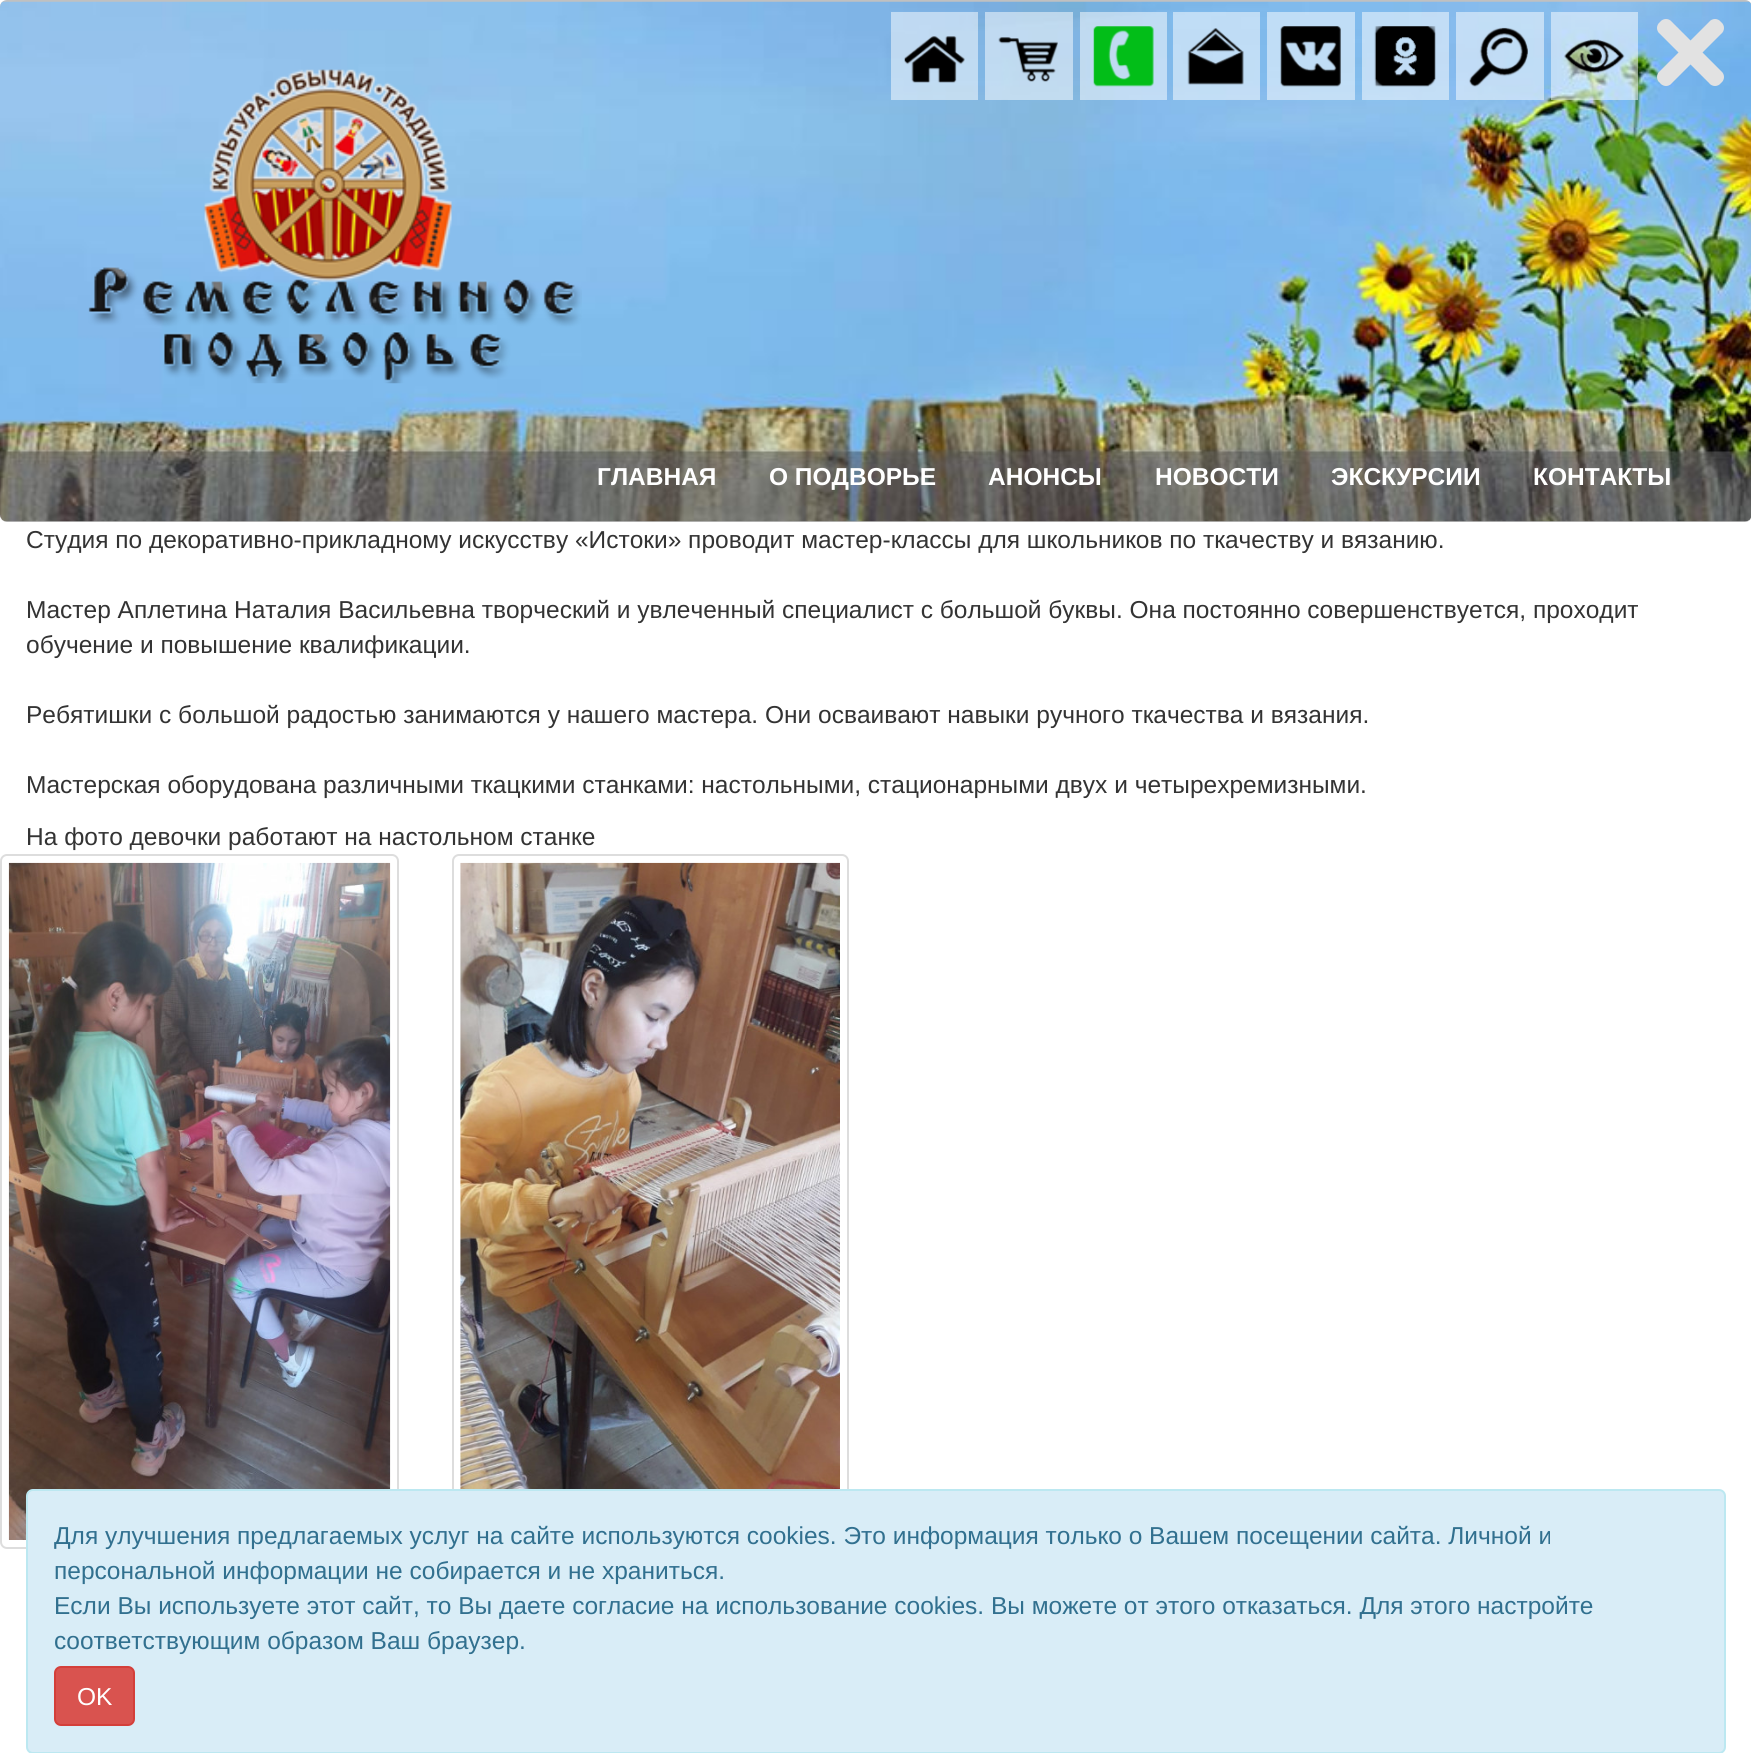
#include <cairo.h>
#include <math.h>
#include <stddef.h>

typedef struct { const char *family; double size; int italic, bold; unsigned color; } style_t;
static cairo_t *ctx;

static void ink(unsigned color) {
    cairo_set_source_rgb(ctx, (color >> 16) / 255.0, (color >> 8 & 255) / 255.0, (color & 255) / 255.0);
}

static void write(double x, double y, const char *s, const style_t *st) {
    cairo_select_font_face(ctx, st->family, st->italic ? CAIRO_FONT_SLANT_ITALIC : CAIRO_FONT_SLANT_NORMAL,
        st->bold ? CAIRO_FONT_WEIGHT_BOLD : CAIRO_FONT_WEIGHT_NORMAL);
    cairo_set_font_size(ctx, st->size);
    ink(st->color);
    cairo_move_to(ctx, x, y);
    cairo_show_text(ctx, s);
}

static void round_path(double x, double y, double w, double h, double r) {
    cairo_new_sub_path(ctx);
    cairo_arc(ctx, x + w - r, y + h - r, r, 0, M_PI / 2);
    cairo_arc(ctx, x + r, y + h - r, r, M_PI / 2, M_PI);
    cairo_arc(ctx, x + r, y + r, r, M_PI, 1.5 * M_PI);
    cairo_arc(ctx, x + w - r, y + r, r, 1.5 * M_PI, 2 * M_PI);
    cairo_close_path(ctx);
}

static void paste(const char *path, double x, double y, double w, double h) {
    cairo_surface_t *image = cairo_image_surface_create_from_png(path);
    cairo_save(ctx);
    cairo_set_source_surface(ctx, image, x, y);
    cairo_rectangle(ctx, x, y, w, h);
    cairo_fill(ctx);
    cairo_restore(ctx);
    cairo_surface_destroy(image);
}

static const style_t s1 = {"Liberation Sans", 24.5, 0, 1, 0xffffff};
static const style_t s2 = {"Liberation Sans", 24.5, 0, 0, 0x333333};
static const style_t s3 = {"Liberation Sans", 24.5, 0, 0, 0x31708f};
static const style_t s4 = {"Liberation Sans", 24.5, 0, 0, 0xffffff};

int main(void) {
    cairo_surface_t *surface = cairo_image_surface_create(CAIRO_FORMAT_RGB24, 1751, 1753);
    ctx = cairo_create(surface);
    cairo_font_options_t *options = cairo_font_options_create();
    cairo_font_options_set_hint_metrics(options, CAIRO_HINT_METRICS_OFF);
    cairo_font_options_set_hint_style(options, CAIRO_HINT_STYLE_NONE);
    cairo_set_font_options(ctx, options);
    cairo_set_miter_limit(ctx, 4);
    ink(0xffffff);
    cairo_paint(ctx);
    ink(0xc0c0c0);
    round_path(0, 0, 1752, 522, 7);
    cairo_fill(ctx);
    paste("pic1.png", 0, 1, 1751, 521);
    paste("pic2.png", 88, 69, 494, 315);
    write(597, 485, "ГЛАВНАЯ", &s1);
    write(769, 485, "О ПОДВОРЬЕ", &s1);
    write(988, 485, "АНОНСЫ", &s1);
    write(1155, 485, "НОВОСТИ", &s1);
    write(1331, 485, "ЭКСКУРСИИ", &s1);
    write(1533, 485, "КОНТАКТЫ", &s1);
    cairo_set_source_rgba(ctx, 1, 1, 1, 0.5);
    cairo_rectangle(ctx, 891, 12, 87, 88);
    cairo_fill(ctx);
    cairo_rectangle(ctx, 985, 12, 88, 88);
    cairo_fill(ctx);
    cairo_rectangle(ctx, 1080, 12, 87, 88);
    cairo_fill(ctx);
    cairo_rectangle(ctx, 1173, 12, 87, 88);
    cairo_fill(ctx);
    cairo_rectangle(ctx, 1267, 12, 88, 88);
    cairo_fill(ctx);
    cairo_rectangle(ctx, 1362, 12, 87, 88);
    cairo_fill(ctx);
    cairo_rectangle(ctx, 1456, 12, 88, 88);
    cairo_fill(ctx);
    cairo_rectangle(ctx, 1551, 12, 87, 88);
    cairo_fill(ctx);
    paste("pic3.png", 904, 36, 61, 47);
    paste("pic4.png", 998, 37, 60, 45);
    paste("pic5.png", 1093, 26, 61, 61);
    paste("pic6.png", 1187, 28, 57, 57);
    paste("pic7.png", 1280, 26, 61, 61);
    paste("pic8.png", 1374, 26, 62, 61);
    paste("pic9.png", 1469, 27, 59, 60);
    paste("pic10.png", 1564, 39, 61, 35);
    ink(0xe2e2e2);
    cairo_new_path(ctx);
    cairo_move_to(ctx, 1672, 22);
    cairo_line_to(ctx, 1721, 71);
    cairo_curve_to(ctx, 1725, 74, 1725, 80, 1721, 83);
    cairo_curve_to(ctx, 1718, 87, 1712, 87, 1709, 83);
    cairo_line_to(ctx, 1660, 34);
    cairo_curve_to(ctx, 1656, 31, 1656, 25, 1660, 22);
    cairo_curve_to(ctx, 1663, 18, 1669, 18, 1672, 22);
    cairo_close_path(ctx);
    cairo_fill(ctx);
    cairo_new_path(ctx);
    cairo_move_to(ctx, 1660, 71);
    cairo_line_to(ctx, 1709, 22);
    cairo_curve_to(ctx, 1712, 18, 1718, 18, 1721, 22);
    cairo_curve_to(ctx, 1725, 25, 1725, 31, 1721, 34);
    cairo_line_to(ctx, 1672, 83);
    cairo_curve_to(ctx, 1669, 87, 1663, 87, 1660, 83);
    cairo_curve_to(ctx, 1656, 80, 1656, 74, 1660, 71);
    cairo_close_path(ctx);
    cairo_fill(ctx);
    write(26, 548, "Студия по декоративно-прикладному искусству «Истоки» проводит мастер-классы для школьников по ткачеству и вязанию.", &s2);
    write(26, 618, "Мастер Аплетина Наталия Васильевна творческий и увлеченный специалист с большой буквы. Она постоянно совершенствуется, проходит", &s2);
    write(26, 653, "обучение и повышение квалификации.", &s2);
    write(26, 723, "Ребятишки с большой радостью занимаются у нашего мастера. Они осваивают навыки ручного ткачества и вязания.", &s2);
    write(26, 793, "Мастерская оборудована различными ткацкими станками: настольными, стационарными двух и четырехремизными.", &s2);
    write(26, 845, "На фото девочки работают на настольном станке", &s2);
    round_path(1, 855, 397, 693, 6);
    ink(0xdddddd);
    cairo_stroke(ctx);
    paste("pic11.png", 8, 862, 383, 678);
    round_path(453, 855, 395, 693, 6);
    cairo_stroke(ctx);
    paste("pic12.png", 460, 862, 380, 627);
    ink(0xd9edf7);
    round_path(27, 1490, 1698, 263, 6);
    cairo_fill_preserve(ctx);
    ink(0xbce8f1);
    cairo_stroke(ctx);
    write(54, 1544, "Для улучшения предлагаемых услуг на сайте используются cookies. Это информация только о Вашем посещении сайта. Личной и", &s3);
    write(54, 1579, "персональной информации не собирается и не храниться.", &s3);
    write(54, 1614, "Если Вы используете этот сайт, то Вы даете согласие на использование cookies. Вы можете от этого отказаться. Для этого настройте", &s3);
    write(54, 1649, "соответствующим образом Ваш браузер.", &s3);
    ink(0xd9534f);
    round_path(55, 1667, 79, 58, 6);
    cairo_fill_preserve(ctx);
    ink(0xd43f3a);
    cairo_stroke(ctx);
    write(77, 1705, "OK", &s4);
    cairo_surface_write_to_png(surface, "screenshot.png");
    cairo_font_options_destroy(options);
    cairo_destroy(ctx);
    cairo_surface_destroy(surface);
    return 0;
}
